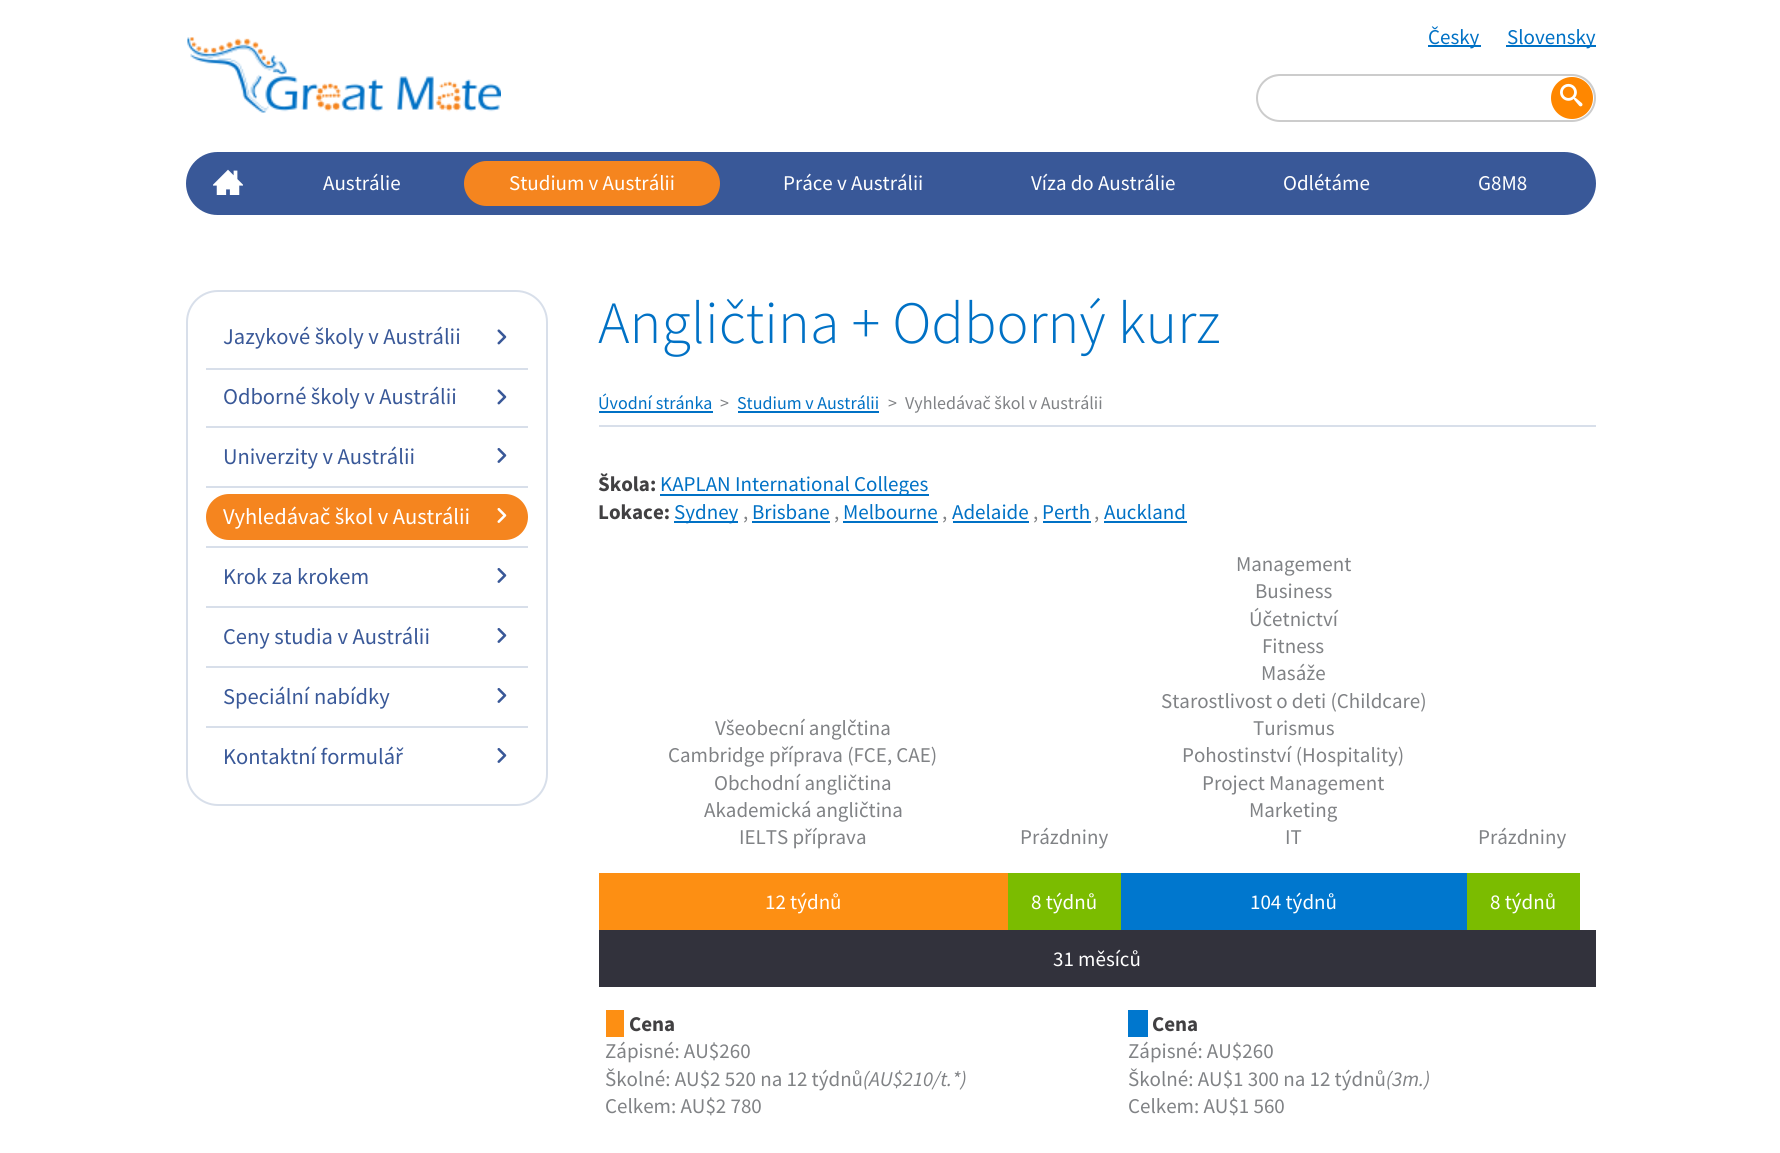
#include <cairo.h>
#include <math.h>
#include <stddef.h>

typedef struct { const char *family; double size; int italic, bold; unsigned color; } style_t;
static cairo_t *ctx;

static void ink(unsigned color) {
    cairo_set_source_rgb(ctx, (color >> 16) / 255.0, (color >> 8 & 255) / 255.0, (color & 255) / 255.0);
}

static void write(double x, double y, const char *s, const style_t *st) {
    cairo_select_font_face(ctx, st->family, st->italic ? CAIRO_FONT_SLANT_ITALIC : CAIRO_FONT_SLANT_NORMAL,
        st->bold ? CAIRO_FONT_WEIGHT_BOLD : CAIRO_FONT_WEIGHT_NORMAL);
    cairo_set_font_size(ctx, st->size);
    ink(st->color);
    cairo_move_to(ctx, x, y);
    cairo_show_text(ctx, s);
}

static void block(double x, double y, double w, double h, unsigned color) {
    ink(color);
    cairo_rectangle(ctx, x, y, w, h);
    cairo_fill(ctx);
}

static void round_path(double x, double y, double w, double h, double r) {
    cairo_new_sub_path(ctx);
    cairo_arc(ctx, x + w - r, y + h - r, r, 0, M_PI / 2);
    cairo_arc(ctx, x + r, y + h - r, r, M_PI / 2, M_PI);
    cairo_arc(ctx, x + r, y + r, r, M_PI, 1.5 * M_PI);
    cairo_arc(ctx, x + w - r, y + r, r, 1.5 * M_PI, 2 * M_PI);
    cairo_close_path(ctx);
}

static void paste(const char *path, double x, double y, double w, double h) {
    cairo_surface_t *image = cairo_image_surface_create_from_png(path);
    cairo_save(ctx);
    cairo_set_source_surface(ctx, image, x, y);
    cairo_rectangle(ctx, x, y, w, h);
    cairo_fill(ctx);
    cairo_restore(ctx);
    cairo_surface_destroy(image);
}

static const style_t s1 = {"Source Sans Pro", 21, 0, 0, 0x0071c5};
static const style_t s2 = {"Source Sans Pro", 21, 0, 0, 0xffffff};
static const style_t s3 = {"Source Sans Pro", 22.5, 0, 0, 0x395898};
static const style_t s4 = {"Source Sans Pro", 22.5, 0, 0, 0xffffff};
static const style_t s5 = {"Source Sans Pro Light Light", 60, 0, 0, 0x0071c5};
static const style_t s6 = {"Source Sans Pro", 18, 0, 0, 0x0071c5};
static const style_t s7 = {"Source Sans Pro", 18, 0, 0, 0x808285};
static const style_t s8 = {"Source Sans Pro", 21, 0, 1, 0x414042};
static const style_t s9 = {"Source Sans Pro", 21, 0, 0, 0x808285};
static const style_t s10 = {"Source Sans Pro", 21, 1, 0, 0x808285};

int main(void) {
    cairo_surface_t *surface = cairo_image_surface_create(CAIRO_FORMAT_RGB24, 1780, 1153);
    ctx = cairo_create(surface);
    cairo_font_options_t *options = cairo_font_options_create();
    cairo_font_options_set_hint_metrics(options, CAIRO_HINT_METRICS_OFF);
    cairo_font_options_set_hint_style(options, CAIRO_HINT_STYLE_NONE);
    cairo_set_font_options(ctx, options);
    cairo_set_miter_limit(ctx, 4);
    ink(0xffffff);
    cairo_paint(ctx);
    paste("pic1.png", 187, 37, 314, 76);
    block(1428, 45, 53, 2, 0x0071c5);
    write(1428, 44, "Česky", &s1);
    block(1506, 45, 90, 2, 0x0071c5);
    write(1507, 44, "Slovensky", &s1);
    ink(0xececec);
    cairo_new_path(ctx);
    cairo_move_to(ctx, 1280, 76);
    cairo_line_to(ctx, 1572, 76);
    cairo_curve_to(ctx, 1584, 76, 1594, 87, 1594, 99);
    cairo_curve_to(ctx, 1594, 103, 1593, 107, 1591, 111);
    cairo_curve_to(ctx, 1593, 107, 1595, 102, 1595, 98);
    cairo_curve_to(ctx, 1595, 85, 1585, 75, 1572, 75);
    cairo_line_to(ctx, 1280, 75);
    cairo_curve_to(ctx, 1267, 75, 1257, 85, 1257, 98);
    cairo_curve_to(ctx, 1257, 87, 1267, 76, 1280, 76);
    cairo_close_path(ctx);
    cairo_fill(ctx);
    round_path(1257, 75, 338, 46, 23);
    ink(0xcccccc);
    cairo_stroke(ctx);
    ink(0xff8700);
    cairo_arc(ctx, 1572, 98, 21, 0, 2 * M_PI);
    cairo_fill(ctx);
    paste("pic2.png", 1560, 83, 23, 24);
    ink(0x395898);
    round_path(186, 152, 1410, 63, 31.5);
    cairo_fill(ctx);
    paste("pic3.png", 213, 169, 30, 26);
    write(323, 190, "Austrálie", &s2);
    ink(0xf5851f);
    round_path(464, 161, 256, 45, 22.5);
    cairo_fill(ctx);
    write(509, 190, "Studium v Austrálii", &s2);
    write(783, 190, "Práce v Austrálii", &s2);
    write(1031, 190, "Víza do Austrálie", &s2);
    write(1283, 190, "Odlétáme", &s2);
    write(1478, 190, "G8M8", &s2);
    round_path(187, 291, 360, 514, 31);
    ink(0xd8dfea);
    cairo_stroke(ctx);
    write(223, 344, "Jazykové školy v Austrálii", &s3);
    paste("pic4.png", 497, 329, 10, 16);
    block(206, 368, 322, 2, 0xd8dfea);
    write(223, 404, "Odborné školy v Austrálii", &s3);
    paste("pic4.png", 497, 389, 10, 16);
    block(206, 426, 322, 2, 0xd8dfea);
    write(223, 464, "Univerzity v Austrálii", &s3);
    paste("pic5.png", 497, 448, 10, 15);
    block(206, 486, 322, 2, 0xd8dfea);
    ink(0xf5851f);
    round_path(206, 494, 322, 46, 23);
    cairo_fill(ctx);
    write(223, 524, "Vyhledávač škol v Austrálii", &s4);
    paste("pic6.png", 497, 508, 10, 15);
    block(206, 546, 322, 2, 0xd8dfea);
    write(223, 584, "Krok za krokem", &s3);
    paste("pic5.png", 497, 568, 10, 15);
    block(206, 606, 322, 2, 0xd8dfea);
    write(223, 644, "Ceny studia v Austrálii", &s3);
    paste("pic5.png", 497, 628, 10, 15);
    block(206, 666, 322, 2, 0xd8dfea);
    write(223, 704, "Speciální nabídky", &s3);
    paste("pic5.png", 497, 688, 10, 15);
    block(206, 726, 322, 2, 0xd8dfea);
    write(223, 764, "Kontaktní formulář", &s3);
    paste("pic5.png", 497, 748, 10, 15);
    write(598, 343, "Angličtina + Odborný kurz", &s5);
    block(599, 425, 997, 2, 0xd8dfea);
    write(598, 409, "Úvodní stránka", &s6);
    block(599, 411, 114, 2, 0x0071c5);
    write(720, 409, ">", &s7);
    write(737, 409, "Studium v Austrálii", &s6);
    block(738, 411, 141, 2, 0x0071c5);
    write(888, 409, ">", &s7);
    write(905, 409, "Vyhledávač škol v Austrálii", &s7);
    write(598, 491, "Škola:", &s8);
    block(660, 494, 269, 2, 0x0071c5);
    write(660, 491, "KAPLAN International Colleges", &s1);
    write(598, 519, "Lokace:", &s8);
    block(674, 521, 64, 2, 0x0071c5);
    write(674, 519, "Sydney", &s1);
    write(743, 519, ",", &s9);
    write(752, 519, "Brisbane", &s1);
    block(752, 521, 78, 2, 0x0071c5);
    write(834, 519, ",", &s9);
    write(843, 519, "Melbourne", &s1);
    block(843, 521, 95, 2, 0x0071c5);
    write(942, 519, ",", &s9);
    write(952, 519, "Adelaide", &s1);
    block(953, 521, 76, 2, 0x0071c5);
    write(1033, 519, ",", &s9);
    write(1042, 519, "Perth", &s1);
    block(1043, 521, 48, 2, 0x0071c5);
    write(1094, 519, ",", &s9);
    write(1104, 519, "Auckland", &s1);
    block(1104, 521, 83, 2, 0x0071c5);
    write(715, 735, "Všeobecní anglčtina", &s9);
    write(668, 762, "Cambridge příprava (FCE, CAE)", &s9);
    write(714, 790, "Obchodní angličtina", &s9);
    write(704, 817, "Akademická angličtina", &s9);
    write(739, 844, "IELTS příprava", &s9);
    write(1020, 844, "Prázdniny", &s9);
    write(1236, 571, "Management", &s9);
    write(1255, 598, "Business", &s9);
    write(1249, 626, "Účetnictví", &s9);
    write(1262, 653, "Fitness", &s9);
    write(1261, 680, "Masáže", &s9);
    write(1161, 708, "Starostlivost o deti (Childcare)", &s9);
    write(1253, 735, "Turismus", &s9);
    write(1182, 762, "Pohostinství (Hospitality)", &s9);
    write(1202, 790, "Project Management", &s9);
    write(1249, 817, "Marketing", &s9);
    write(1285, 844, "IT", &s9);
    write(1478, 844, "Prázdniny", &s9);
    block(599, 873, 409, 57, 0xfd8f13);
    write(765, 909, "12 týdnů", &s2);
    block(1008, 873, 113, 57, 0x7bbc00);
    write(1031, 909, "8 týdnů", &s2);
    block(1121, 873, 346, 57, 0x0077ce);
    write(1250, 909, "104 týdnů", &s2);
    block(1467, 873, 113, 57, 0x7bbc00);
    write(1490, 909, "8 týdnů", &s2);
    block(599, 930, 997, 57, 0x32323c);
    write(1053, 966, "31 měsíců", &s2);
    write(629, 1031, "Cena", &s8);
    block(606, 1010, 18, 27, 0xfd8f13);
    write(605, 1058, "Zápisné: AU$260", &s9);
    write(605, 1086, "Školné: AU$2 520 na 12 týdnů", &s9);
    write(863, 1086, "(AU$210/t.*)", &s10);
    write(605, 1113, "Celkem: AU$2 780", &s9);
    write(1152, 1031, "Cena", &s8);
    block(1128, 1010, 20, 27, 0x0077ce);
    write(1128, 1058, "Zápisné: AU$260", &s9);
    write(1128, 1086, "Školné: AU$1 300 na 12 týdnů", &s9);
    write(1386, 1086, "(3m.)", &s10);
    write(1128, 1113, "Celkem: AU$1 560", &s9);
    cairo_surface_write_to_png(surface, "screenshot.png");
    cairo_font_options_destroy(options);
    cairo_destroy(ctx);
    cairo_surface_destroy(surface);
    return 0;
}
